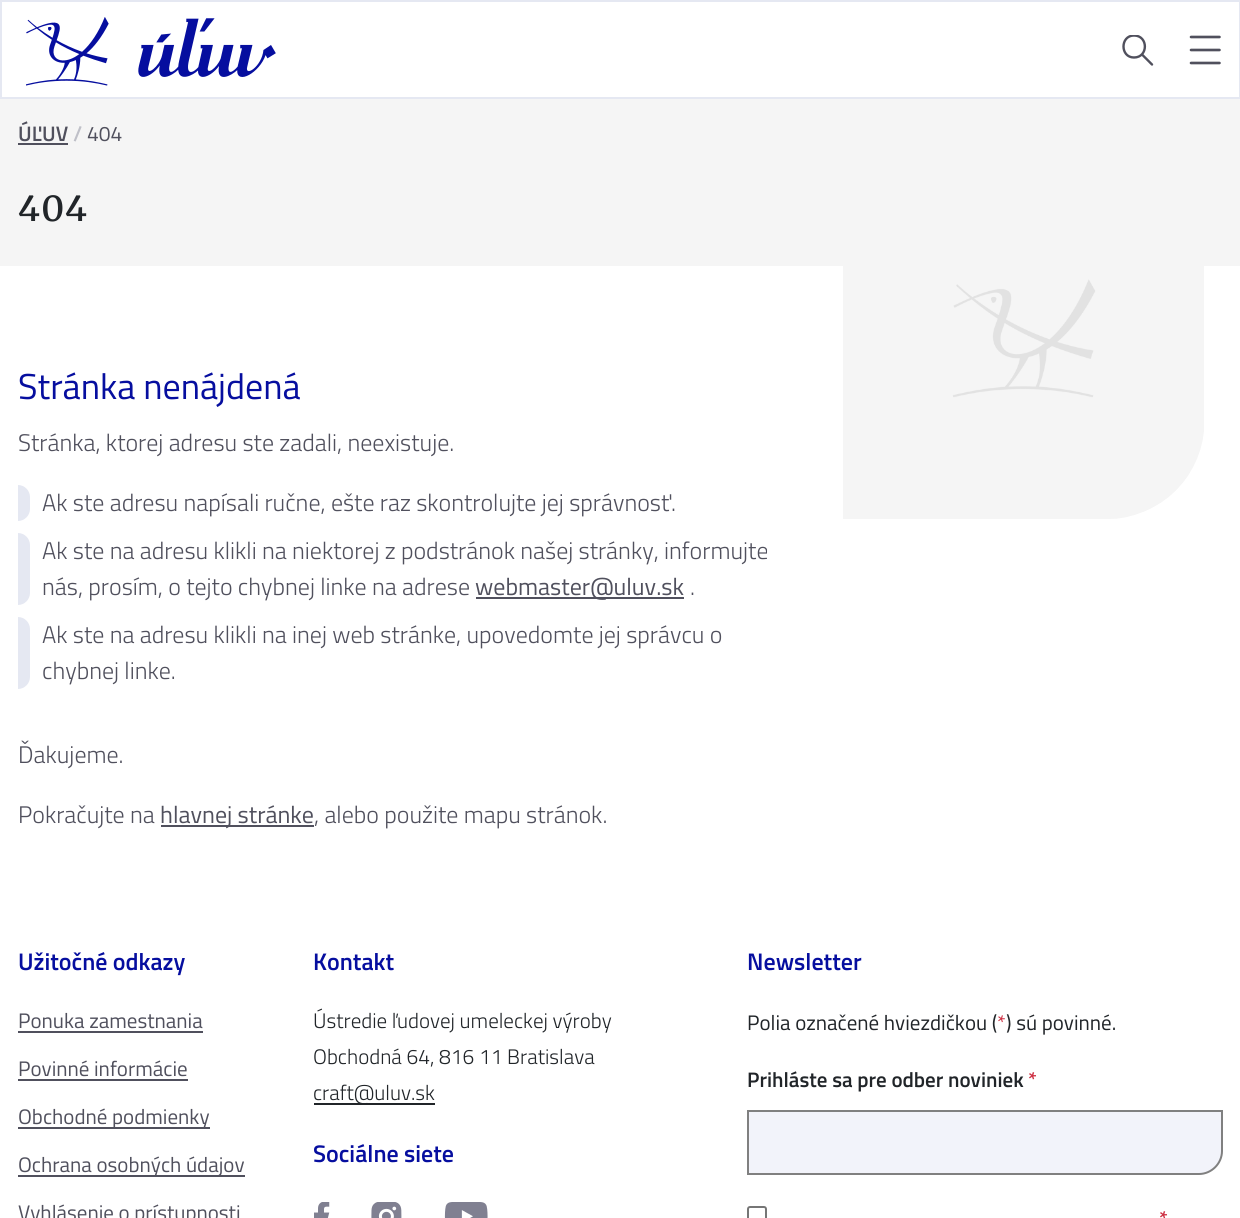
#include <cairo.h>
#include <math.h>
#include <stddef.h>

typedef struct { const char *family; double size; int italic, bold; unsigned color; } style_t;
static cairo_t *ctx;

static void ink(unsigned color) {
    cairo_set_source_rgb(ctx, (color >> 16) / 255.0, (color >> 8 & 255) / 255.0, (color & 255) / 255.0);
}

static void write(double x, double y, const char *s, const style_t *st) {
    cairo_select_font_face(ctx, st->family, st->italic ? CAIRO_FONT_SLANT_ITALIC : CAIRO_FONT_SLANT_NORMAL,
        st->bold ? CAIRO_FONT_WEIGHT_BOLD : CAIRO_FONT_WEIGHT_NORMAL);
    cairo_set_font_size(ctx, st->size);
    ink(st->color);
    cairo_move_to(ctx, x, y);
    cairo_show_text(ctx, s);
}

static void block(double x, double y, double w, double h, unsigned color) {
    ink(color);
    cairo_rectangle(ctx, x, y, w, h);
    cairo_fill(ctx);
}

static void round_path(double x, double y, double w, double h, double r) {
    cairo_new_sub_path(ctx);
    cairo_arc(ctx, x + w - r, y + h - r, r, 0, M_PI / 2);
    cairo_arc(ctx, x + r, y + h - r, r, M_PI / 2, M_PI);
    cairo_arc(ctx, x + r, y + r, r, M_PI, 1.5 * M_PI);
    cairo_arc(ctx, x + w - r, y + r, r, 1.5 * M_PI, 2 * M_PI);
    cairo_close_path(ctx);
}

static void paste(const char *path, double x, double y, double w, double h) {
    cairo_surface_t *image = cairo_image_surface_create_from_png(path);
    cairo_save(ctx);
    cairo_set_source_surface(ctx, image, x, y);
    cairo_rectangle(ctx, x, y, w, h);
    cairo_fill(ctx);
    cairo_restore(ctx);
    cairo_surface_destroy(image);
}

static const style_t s1 = {"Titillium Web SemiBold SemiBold", 21, 0, 0, 0x50505d};
static const style_t s2 = {"Titillium Web SemiBold SemiBold", 21, 0, 0, 0xbfc0c8};
static const style_t s3 = {"Titillium Web", 21, 0, 0, 0x50505d};
static const style_t s4 = {"Yrsa", 51, 0, 0, 0x212529};
static const style_t s5 = {"Titillium Web", 36, 0, 0, 0x060e9f};
static const style_t s6 = {"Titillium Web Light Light", 24, 0, 0, 0x50505d};
static const style_t s7 = {"Titillium Web", 24, 0, 0, 0x50505d};
static const style_t s8 = {"Titillium Web SemiBold SemiBold", 24, 0, 0, 0x060e9f};
static const style_t s9 = {"Titillium Web Light Light", 21, 0, 0, 0x212529};
static const style_t s10 = {"Titillium Web", 21, 0, 0, 0x212529};
static const style_t s11 = {"Titillium Web", 21, 0, 0, 0xce3144};
static const style_t s12 = {"Titillium Web SemiBold SemiBold", 21, 0, 0, 0x212529};
static const style_t s13 = {"Titillium Web SemiBold SemiBold", 21, 0, 0, 0xce3144};

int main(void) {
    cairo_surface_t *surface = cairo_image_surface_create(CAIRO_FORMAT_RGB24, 1240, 1218);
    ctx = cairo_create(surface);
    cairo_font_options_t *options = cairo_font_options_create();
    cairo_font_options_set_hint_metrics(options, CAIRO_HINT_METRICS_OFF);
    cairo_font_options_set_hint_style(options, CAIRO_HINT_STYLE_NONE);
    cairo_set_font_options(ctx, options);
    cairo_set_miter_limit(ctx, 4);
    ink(0xffffff);
    cairo_paint(ctx);
    cairo_rectangle(ctx, 1, 1, 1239, 97);
    ink(0xe5e8f2);
    cairo_stroke(ctx);
    paste("pic1.png", 26, 17, 250, 69);
    cairo_save(ctx);
    cairo_rectangle(ctx, 1122, 35, 32, 30);
    cairo_clip(ctx);
    cairo_new_path(ctx);
    cairo_move_to(ctx, 1134, 57.5);
    cairo_curve_to(ctx, 1148.5, 57.5, 1148.5, 35.5, 1134, 35.5);
    cairo_curve_to(ctx, 1120, 35.5, 1120, 57.5, 1134, 57.5);
    cairo_close_path(ctx);
    ink(0x50505d);
    cairo_set_line_width(ctx, 2.4);
    cairo_set_line_cap(ctx, CAIRO_LINE_CAP_ROUND);
    cairo_set_line_join(ctx, CAIRO_LINE_JOIN_ROUND);
    cairo_stroke(ctx);
    cairo_restore(ctx);
    cairo_new_path(ctx);
    cairo_move_to(ctx, 1152, 64.5);
    cairo_line_to(ctx, 1142.5, 55);
    ink(0x50505d);
    cairo_set_line_width(ctx, 2.4);
    cairo_set_line_cap(ctx, CAIRO_LINE_CAP_ROUND);
    cairo_set_line_join(ctx, CAIRO_LINE_JOIN_ROUND);
    cairo_stroke(ctx);
    cairo_new_path(ctx);
    cairo_move_to(ctx, 1191, 37);
    cairo_line_to(ctx, 1219.5, 37);
    cairo_move_to(ctx, 1191, 50);
    cairo_line_to(ctx, 1219.5, 50);
    cairo_move_to(ctx, 1191, 63);
    cairo_line_to(ctx, 1219.5, 63);
    cairo_set_line_width(ctx, 2.6);
    cairo_set_line_join(ctx, CAIRO_LINE_JOIN_MITER);
    cairo_stroke(ctx);
    block(0, 99, 1240, 167, 0xf5f5f5);
    write(18, 141, "ÚĽUV", &s1);
    block(18, 143, 50, 2, 0x50505d);
    write(73, 141, "/", &s2);
    write(87, 141, "404", &s3);
    write(18, 221, "404", &s4);
    write(18, 399, "Stránka nenájdená", &s5);
    write(18, 451, "Stránka, ktorej adresu ste zadali, neexistuje.", &s6);
    ink(0xe5e8f2);
    cairo_new_path(ctx);
    cairo_move_to(ctx, 18, 485);
    cairo_curve_to(ctx, 24.5, 485, 30, 490.5, 30, 497);
    cairo_line_to(ctx, 30, 509);
    cairo_curve_to(ctx, 30, 515.5, 24.5, 521, 18, 521);
    cairo_close_path(ctx);
    cairo_fill(ctx);
    write(42, 511, "Ak ste adresu napísali ručne, ešte raz skontrolujte jej správnosť.", &s6);
    write(42, 559, "Ak ste na adresu klikli na niektorej z podstránok našej stránky, informujte", &s6);
    write(42, 595, "nás, prosím, o tejto chybnej linke na adrese", &s6);
    ink(0xe5e8f2);
    cairo_new_path(ctx);
    cairo_move_to(ctx, 18, 533);
    cairo_curve_to(ctx, 24.5, 533, 30, 538.5, 30, 545);
    cairo_line_to(ctx, 30, 593);
    cairo_curve_to(ctx, 30, 599.5, 24.5, 605, 18, 605);
    cairo_close_path(ctx);
    cairo_fill(ctx);
    block(476, 597, 208, 2, 0x50505d);
    write(475, 595, "webmaster@uluv.sk", &s7);
    write(690, 595, ".", &s6);
    ink(0xe5e8f2);
    cairo_new_path(ctx);
    cairo_move_to(ctx, 18, 617);
    cairo_curve_to(ctx, 24.5, 617, 30, 622.5, 30, 629);
    cairo_line_to(ctx, 30, 677);
    cairo_curve_to(ctx, 30, 683.5, 24.5, 689, 18, 689);
    cairo_close_path(ctx);
    cairo_fill(ctx);
    write(42, 643, "Ak ste na adresu klikli na inej web stránke, upovedomte jej správcu o", &s6);
    write(42, 679, "chybnej linke.", &s6);
    write(18, 763, "Ďakujeme.", &s6);
    write(18, 823, "Pokračujte na", &s6);
    block(161, 825, 153, 2, 0x50505d);
    write(160, 823, "hlavnej stránke", &s7);
    write(314, 823, ", alebo použite mapu stránok.", &s6);
    paste("pic2.png", 843, 266, 361, 253);
    write(18, 970, "Užitočné odkazy", &s8);
    write(18, 1028, "Ponuka zamestnania", &s3);
    block(18, 1031, 185, 2, 0x50505d);
    write(18, 1076, "Povinné informácie", &s3);
    block(18, 1079, 170, 2, 0x50505d);
    block(18, 1127, 192, 2, 0x50505d);
    write(18, 1124, "Obchodné podmienky", &s3);
    block(18, 1175, 227, 2, 0x50505d);
    write(18, 1172, "Ochrana osobných údajov", &s3);
    write(18, 1220, "Vyhlásenie o prístupnosti", &s3);
    write(313, 970, "Kontakt", &s8);
    write(313, 1028, "Ústredie ľudovej umeleckej výroby", &s9);
    write(313, 1064, "Obchodná 64, 816 11 Bratislava", &s9);
    block(314, 1103, 121, 2, 0x212529);
    write(313, 1100, "craft@uluv.sk", &s9);
    write(313, 1162, "Sociálne siete", &s8);
    paste("pic3.png", 314, 1202, 16, 16);
    paste("pic4.png", 371, 1202, 31, 16);
    paste("pic5.png", 444, 1202, 44, 16);
    write(747, 970, "Newsletter", &s8);
    write(747, 1030, "Polia označené hviezdičkou (", &s10);
    write(997, 1030, "*", &s11);
    write(1006, 1030, ") sú povinné.", &s10);
    write(747, 1087, "Prihláste sa pre odber noviniek", &s12);
    write(1028, 1087, "*", &s13);
    ink(0xf2f3fa);
    cairo_new_path(ctx);
    cairo_move_to(ctx, 748, 1111);
    cairo_line_to(ctx, 1222, 1111);
    cairo_line_to(ctx, 1222, 1151);
    cairo_curve_to(ctx, 1222, 1163.5, 1211.5, 1174, 1199, 1174);
    cairo_line_to(ctx, 748, 1174);
    cairo_close_path(ctx);
    cairo_fill_preserve(ctx);
    ink(0x808080);
    cairo_set_line_width(ctx, 2);
    cairo_set_line_cap(ctx, CAIRO_LINE_CAP_BUTT);
    cairo_stroke(ctx);
    round_path(748, 1207, 18, 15, 2);
    ink(0x767676);
    cairo_stroke(ctx);
    write(1159, 1226, "*", &s13);
    cairo_surface_write_to_png(surface, "screenshot.png");
    cairo_font_options_destroy(options);
    cairo_destroy(ctx);
    cairo_surface_destroy(surface);
    return 0;
}
